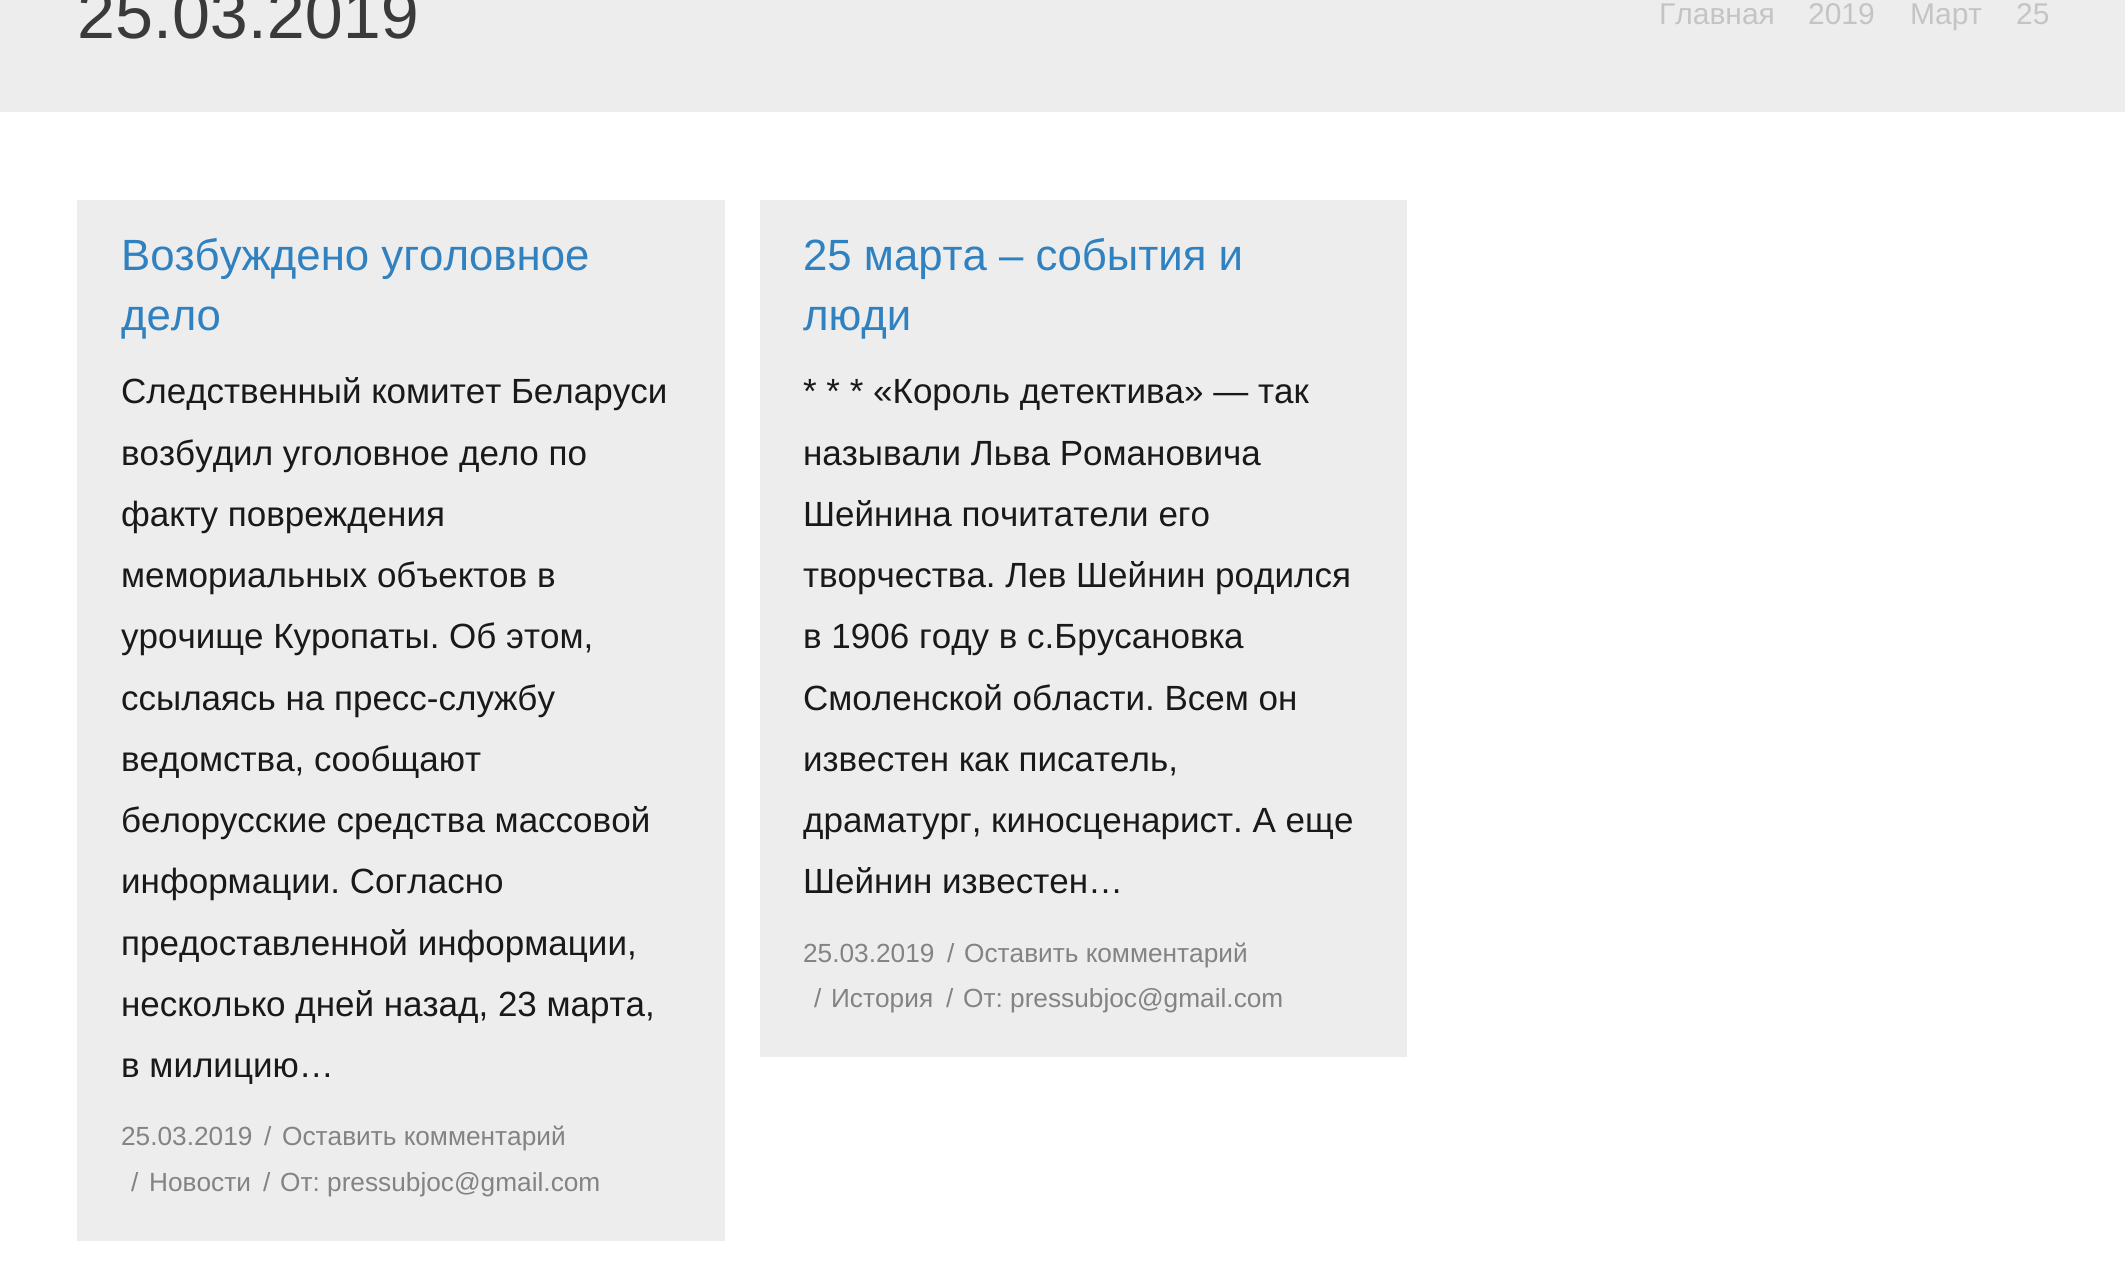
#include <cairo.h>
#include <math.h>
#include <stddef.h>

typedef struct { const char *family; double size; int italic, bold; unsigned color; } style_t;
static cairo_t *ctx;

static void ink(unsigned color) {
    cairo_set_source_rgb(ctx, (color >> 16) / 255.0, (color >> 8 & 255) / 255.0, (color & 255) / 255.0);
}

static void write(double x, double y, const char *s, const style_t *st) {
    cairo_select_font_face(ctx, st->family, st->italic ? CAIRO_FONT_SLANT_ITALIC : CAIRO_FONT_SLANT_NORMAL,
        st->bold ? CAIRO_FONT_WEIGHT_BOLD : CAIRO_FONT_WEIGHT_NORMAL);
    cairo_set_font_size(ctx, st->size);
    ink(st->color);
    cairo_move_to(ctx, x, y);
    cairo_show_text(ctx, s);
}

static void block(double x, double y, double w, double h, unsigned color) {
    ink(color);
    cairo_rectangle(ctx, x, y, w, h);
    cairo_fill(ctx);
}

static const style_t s1 = {"Liberation Sans", 68.25, 0, 0, 0x3a3a3a};
static const style_t s2 = {"Liberation Sans", 30, 0, 0, 0xc4c4c4};
static const style_t s3 = {"Liberation Sans", 43.75, 0, 0, 0x3081c0};
static const style_t s4 = {"Liberation Sans", 35, 0, 0, 0x191919};
static const style_t s5 = {"Liberation Sans", 26.25, 0, 0, 0x838383};

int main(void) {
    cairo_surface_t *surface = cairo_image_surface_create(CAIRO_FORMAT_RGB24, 2125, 1270);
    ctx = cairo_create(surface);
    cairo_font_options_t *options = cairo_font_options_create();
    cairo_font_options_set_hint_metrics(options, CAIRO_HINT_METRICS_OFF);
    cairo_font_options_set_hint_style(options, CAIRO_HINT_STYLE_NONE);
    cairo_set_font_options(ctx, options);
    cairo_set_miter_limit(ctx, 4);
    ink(0xffffff);
    cairo_paint(ctx);
    block(0, 0, 2125, 112, 0xededed);
    write(77, 38, "25.03.2019", &s1);
    write(1659, 24, "Главная", &s2);
    write(1808, 24, "2019", &s2);
    write(1910, 24, "Март", &s2);
    write(2016, 24, "25", &s2);
    block(77, 200, 648, 1041, 0xededed);
    write(121, 270, "Возбуждено уголовное", &s3);
    write(121, 330, "дело", &s3);
    write(121, 403, "Следственный комитет Беларуси", &s4);
    write(121, 465, "возбудил уголовное дело по", &s4);
    write(121, 526, "факту повреждения", &s4);
    write(121, 587, "мемориальных объектов в", &s4);
    write(121, 648, "урочище Куропаты. Об этом,", &s4);
    write(121, 710, "ссылаясь на пресс-службу", &s4);
    write(121, 771, "ведомства, сообщают", &s4);
    write(121, 832, "белорусские средства массовой", &s4);
    write(121, 893, "информации. Согласно", &s4);
    write(121, 955, "предоставленной информации,", &s4);
    write(121, 1016, "несколько дней назад, 23 марта,", &s4);
    write(121, 1077, "в милицию…", &s4);
    write(121, 1145, "25.03.2019", &s5);
    write(264, 1145, "/", &s5);
    write(282, 1145, "Оставить комментарий", &s5);
    write(131, 1191, "/", &s5);
    write(149, 1191, "Новости", &s5);
    write(263, 1191, "/", &s5);
    write(280, 1191, "От: pressubjoc@gmail.com", &s5);
    block(760, 200, 647, 857, 0xededed);
    write(803, 270, "25 марта – события и", &s3);
    write(803, 330, "люди", &s3);
    write(803, 403, "* * * «Король детектива» — так", &s4);
    write(803, 465, "называли Льва Романовича", &s4);
    write(803, 526, "Шейнина почитатели его", &s4);
    write(803, 587, "творчества. Лев Шейнин родился", &s4);
    write(803, 648, "в 1906 году в с.Брусановка", &s4);
    write(803, 710, "Смоленской области. Всем он", &s4);
    write(803, 771, "известен как писатель,", &s4);
    write(803, 832, "драматург, киносценарист. А еще", &s4);
    write(803, 893, "Шейнин известен…", &s4);
    write(803, 962, "25.03.2019", &s5);
    write(947, 962, "/", &s5);
    write(964, 962, "Оставить комментарий", &s5);
    write(814, 1007, "/", &s5);
    write(831, 1007, "История", &s5);
    write(946, 1007, "/", &s5);
    write(963, 1007, "От: pressubjoc@gmail.com", &s5);
    cairo_surface_write_to_png(surface, "screenshot.png");
    cairo_font_options_destroy(options);
    cairo_destroy(ctx);
    cairo_surface_destroy(surface);
    return 0;
}
